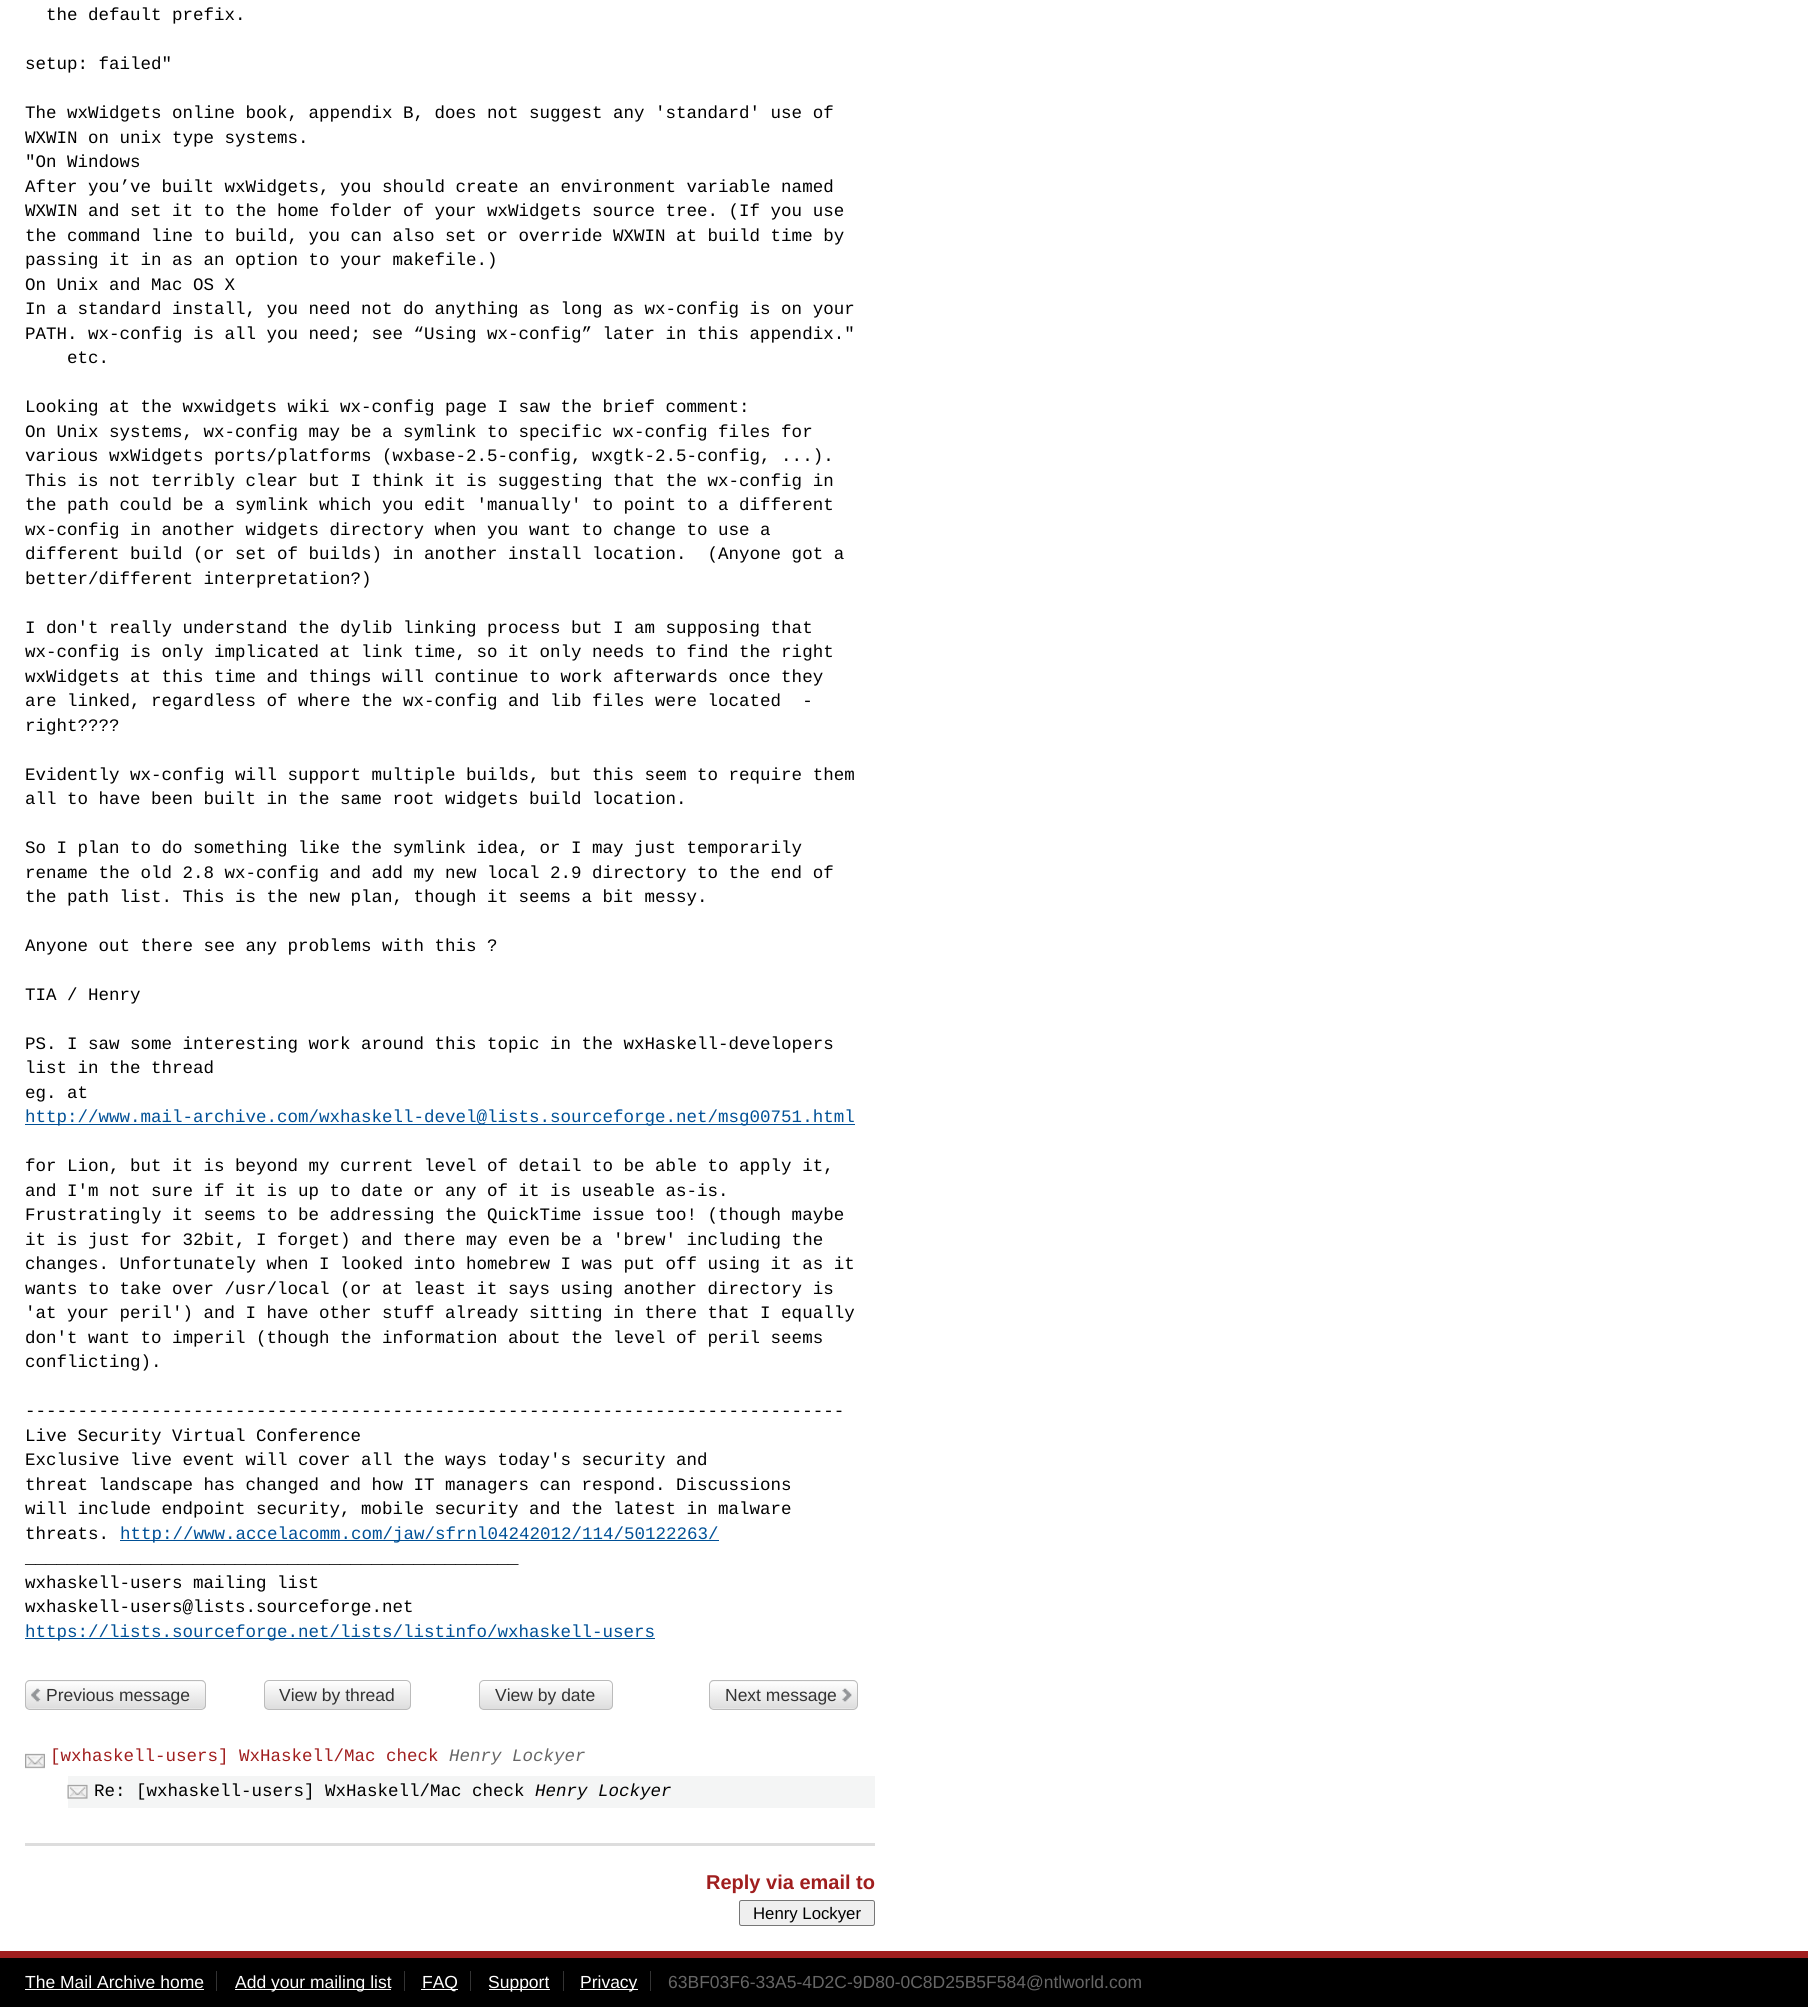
#include <cairo.h>
#include <math.h>
#include <stddef.h>

typedef struct { const char *family; double size; int italic, bold; unsigned color; } style_t;
static cairo_t *ctx;

static void ink(unsigned color) {
    cairo_set_source_rgb(ctx, (color >> 16) / 255.0, (color >> 8 & 255) / 255.0, (color & 255) / 255.0);
}

static void write(double x, double y, const char *s, const style_t *st) {
    cairo_select_font_face(ctx, st->family, st->italic ? CAIRO_FONT_SLANT_ITALIC : CAIRO_FONT_SLANT_NORMAL,
        st->bold ? CAIRO_FONT_WEIGHT_BOLD : CAIRO_FONT_WEIGHT_NORMAL);
    cairo_set_font_size(ctx, st->size);
    ink(st->color);
    cairo_move_to(ctx, x, y);
    cairo_show_text(ctx, s);
}

static void block(double x, double y, double w, double h, unsigned color) {
    ink(color);
    cairo_rectangle(ctx, x, y, w, h);
    cairo_fill(ctx);
}

static void round_path(double x, double y, double w, double h, double r) {
    cairo_new_sub_path(ctx);
    cairo_arc(ctx, x + w - r, y + h - r, r, 0, M_PI / 2);
    cairo_arc(ctx, x + r, y + h - r, r, M_PI / 2, M_PI);
    cairo_arc(ctx, x + r, y + r, r, M_PI, 1.5 * M_PI);
    cairo_arc(ctx, x + w - r, y + r, r, 1.5 * M_PI, 2 * M_PI);
    cairo_close_path(ctx);
}

static void paste(const char *path, double x, double y, double w, double h) {
    cairo_surface_t *image = cairo_image_surface_create_from_png(path);
    cairo_save(ctx);
    cairo_set_source_surface(ctx, image, x, y);
    cairo_rectangle(ctx, x, y, w, h);
    cairo_fill(ctx);
    cairo_restore(ctx);
    cairo_surface_destroy(image);
}

static const style_t s1 = {"Liberation Mono", 17.5, 0, 0, 0x000000};
static const style_t s2 = {"Liberation Mono", 17.5, 0, 0, 0x005096};
static const style_t s3 = {"Liberation Sans", 17.5, 0, 0, 0x333333};
static const style_t s4 = {"Liberation Mono", 17.5, 0, 0, 0xa01e1e};
static const style_t s5 = {"Liberation Mono", 17.5, 1, 0, 0x666666};
static const style_t s6 = {"Liberation Mono", 17.5, 1, 0, 0x000000};
static const style_t s7 = {"Liberation Sans", 20, 0, 1, 0xa01e1e};
static const style_t s8 = {"Liberation Sans", 16.75, 0, 0, 0x000000};
static const style_t s9 = {"Liberation Sans", 17.5, 0, 0, 0xffffff};
static const style_t s10 = {"Liberation Sans", 17.5, 0, 0, 0x666666};

int main(void) {
    cairo_surface_t *surface = cairo_image_surface_create(CAIRO_FORMAT_RGB24, 1808, 2007);
    ctx = cairo_create(surface);
    cairo_font_options_t *options = cairo_font_options_create();
    cairo_font_options_set_hint_metrics(options, CAIRO_HINT_METRICS_OFF);
    cairo_font_options_set_hint_style(options, CAIRO_HINT_STYLE_NONE);
    cairo_set_font_options(ctx, options);
    cairo_set_miter_limit(ctx, 4);
    cairo_pattern_t *gradient;
    ink(0xffffff);
    cairo_paint(ctx);
    write(46, 20, "the default prefix.", &s1);
    write(25, 69, "setup: failed\"", &s1);
    write(25, 118, "The wxWidgets online book, appendix B, does not suggest any 'standard' use of", &s1);
    write(25, 143, "WXWIN on unix type systems.", &s1);
    write(25, 167, "\"On Windows", &s1);
    write(25, 192, "After you’ve built wxWidgets, you should create an environment variable named", &s1);
    write(25, 216, "WXWIN and set it to the home folder of your wxWidgets source tree. (If you use", &s1);
    write(25, 241, "the command line to build, you can also set or override WXWIN at build time by", &s1);
    write(25, 265, "passing it in as an option to your makefile.)", &s1);
    write(25, 290, "On Unix and Mac OS X", &s1);
    write(25, 314, "In a standard install, you need not do anything as long as wx-config is on your", &s1);
    write(25, 339, "PATH. wx-config is all you need; see “Using wx-config” later in this appendix.\"", &s1);
    write(67, 363, "etc.", &s1);
    write(25, 412, "Looking at the wxwidgets wiki wx-config page I saw the brief comment:", &s1);
    write(25, 437, "On Unix systems, wx-config may be a symlink to specific wx-config files for", &s1);
    write(25, 461, "various wxWidgets ports/platforms (wxbase-2.5-config, wxgtk-2.5-config, ...).", &s1);
    write(25, 486, "This is not terribly clear but I think it is suggesting that the wx-config in", &s1);
    write(25, 510, "the path could be a symlink which you edit 'manually' to point to a different", &s1);
    write(25, 535, "wx-config in another widgets directory when you want to change to use a", &s1);
    write(25, 559, "different build (or set of builds) in another install location.  (Anyone got a", &s1);
    write(25, 584, "better/different interpretation?)", &s1);
    write(25, 633, "I don't really understand the dylib linking process but I am supposing that", &s1);
    write(25, 657, "wx-config is only implicated at link time, so it only needs to find the right", &s1);
    write(25, 682, "wxWidgets at this time and things will continue to work afterwards once they", &s1);
    write(25, 706, "are linked, regardless of where the wx-config and lib files were located  -", &s1);
    write(25, 731, "right?\077?\077", &s1);
    write(25, 780, "Evidently wx-config will support multiple builds, but this seem to require them", &s1);
    write(25, 804, "all to have been built in the same root widgets build location.", &s1);
    write(25, 853, "So I plan to do something like the symlink idea, or I may just temporarily", &s1);
    write(25, 878, "rename the old 2.8 wx-config and add my new local 2.9 directory to the end of", &s1);
    write(25, 902, "the path list. This is the new plan, though it seems a bit messy.", &s1);
    write(25, 951, "Anyone out there see any problems with this ?", &s1);
    write(25, 1000, "TIA / Henry", &s1);
    write(25, 1049, "PS. I saw some interesting work around this topic in the wxHaskell-developers", &s1);
    write(25, 1073, "list in the thread", &s1);
    write(25, 1098, "eg. at", &s1);
    block(25, 1124, 830, 1, 0x005096);
    write(25, 1122, "http://www.mail-archive.com/wxhaskell-devel@lists.sourceforge.net/msg00751.html", &s2);
    write(25, 1171, "for Lion, but it is beyond my current level of detail to be able to apply it,", &s1);
    write(25, 1196, "and I'm not sure if it is up to date or any of it is useable as-is.", &s1);
    write(25, 1220, "Frustratingly it seems to be addressing the QuickTime issue too! (though maybe", &s1);
    write(25, 1245, "it is just for 32bit, I forget) and there may even be a 'brew' including the", &s1);
    write(25, 1269, "changes. Unfortunately when I looked into homebrew I was put off using it as it", &s1);
    write(25, 1294, "wants to take over /usr/local (or at least it says using another directory is", &s1);
    write(25, 1318, "'at your peril') and I have other stuff already sitting in there that I equally", &s1);
    write(25, 1343, "don't want to imperil (though the information about the level of peril seems", &s1);
    write(25, 1367, "conflicting).", &s1);
    write(25, 1416, "------------------------------------------------------------------------------", &s1);
    write(25, 1441, "Live Security Virtual Conference", &s1);
    write(25, 1465, "Exclusive live event will cover all the ways today's security and", &s1);
    write(25, 1490, "threat landscape has changed and how IT managers can respond. Discussions", &s1);
    write(25, 1514, "will include endpoint security, mobile security and the latest in malware", &s1);
    write(25, 1539, "threats.", &s1);
    block(120, 1540, 599, 1, 0x005096);
    write(120, 1539, "http://www.accelacomm.com/jaw/sfrnl04242012/114/50122263/", &s2);
    write(25, 1563, "_______________________________________________", &s1);
    write(25, 1588, "wxhaskell-users mailing list", &s1);
    write(25, 1612, "wxhaskell-users@lists.sourceforge.net", &s1);
    block(25, 1638, 630, 1, 0x005096);
    write(25, 1637, "https://lists.sourceforge.net/lists/listinfo/wxhaskell-users", &s2);
    paste("pic1.png", 25, 1680, 181, 30);
    round_path(25.5, 1680.5, 180, 29, 4.5);
    ink(0xbbbbbb);
    cairo_set_line_width(ctx, 1);
    cairo_stroke(ctx);
    write(46, 1701, "Previous message", &s3);
    cairo_save(ctx);
    round_path(264, 1680, 147, 30, 5);
    cairo_clip(ctx);
    gradient = cairo_pattern_create_linear(338, 1681, 338, 1709);
    cairo_pattern_add_color_stop_rgba(gradient, 0, 1, 1, 1, 1);
    cairo_pattern_add_color_stop_rgba(gradient, 1, 0.867, 0.867, 0.867, 1);
    cairo_set_source(ctx, gradient);
    cairo_pattern_destroy(gradient);
    cairo_rectangle(ctx, 264, 1681, 147, 28);
    cairo_fill(ctx);
    cairo_restore(ctx);
    round_path(264.5, 1680.5, 146, 29, 4.5);
    ink(0xbbbbbb);
    cairo_stroke(ctx);
    write(279, 1701, "View by thread", &s3);
    cairo_save(ctx);
    round_path(479, 1680, 134, 30, 5);
    cairo_clip(ctx);
    gradient = cairo_pattern_create_linear(546, 1681, 546, 1709);
    cairo_pattern_add_color_stop_rgba(gradient, 0, 1, 1, 1, 1);
    cairo_pattern_add_color_stop_rgba(gradient, 1, 0.867, 0.867, 0.867, 1);
    cairo_set_source(ctx, gradient);
    cairo_pattern_destroy(gradient);
    cairo_rectangle(ctx, 479, 1681, 134, 28);
    cairo_fill(ctx);
    cairo_restore(ctx);
    round_path(479.5, 1680.5, 133, 29, 4.5);
    ink(0xbbbbbb);
    cairo_stroke(ctx);
    write(495, 1701, "View by date", &s3);
    paste("pic2.png", 709, 1680, 148, 30);
    round_path(709.5, 1680.5, 148, 29, 4.5);
    ink(0xbbbbbb);
    cairo_stroke(ctx);
    write(725, 1701, "Next message", &s3);
    paste("pic3.png", 25, 1753, 20, 16);
    write(50, 1761, "[wxhaskell-users] WxHaskell/Mac check", &s4);
    write(449, 1761, "Henry Lockyer", &s5);
    block(68, 1776, 807, 32, 0xf4f5f5);
    paste("pic4.png", 67, 1784, 21, 15);
    write(94, 1796, "Re: [wxhaskell-users] WxHaskell/Mac check", &s1);
    write(535, 1796, "Henry Lockyer", &s6);
    block(25, 1843, 850, 3, 0xdddddd);
    write(706, 1889, "Reply via email to", &s7);
    ink(0xefefef);
    round_path(739.5, 1900.5, 135, 25, 2);
    cairo_fill_preserve(ctx);
    ink(0x767676);
    cairo_stroke(ctx);
    write(753, 1919, "Henry Lockyer", &s8);
    block(0, 1958, 1808, 49, 0x000000);
    block(0, 1951, 1808, 7, 0xa01e1e);
    write(25, 1988, "The Mail Archive home", &s9);
    block(216, 1971, 1, 20, 0x333333);
    block(25, 1989, 179, 1, 0xffffff);
    block(235, 1989, 156, 1, 0xffffff);
    write(235, 1988, "Add your mailing list", &s9);
    block(404, 1971, 1, 20, 0x333333);
    block(421, 1989, 37, 1, 0xffffff);
    write(422, 1988, "FAQ", &s9);
    block(470, 1971, 1, 20, 0x333333);
    block(489, 1989, 61, 1, 0xffffff);
    write(488, 1988, "Support", &s9);
    block(563, 1971, 1, 20, 0x333333);
    block(580, 1989, 58, 1, 0xffffff);
    write(580, 1988, "Privacy", &s9);
    block(650, 1971, 1, 20, 0x333333);
    write(668, 1988, "63BF03F6-33A5-4D2C-9D80-0C8D25B5F584@ntlworld.com", &s10);
    cairo_surface_write_to_png(surface, "screenshot.png");
    cairo_font_options_destroy(options);
    cairo_destroy(ctx);
    cairo_surface_destroy(surface);
    return 0;
}
